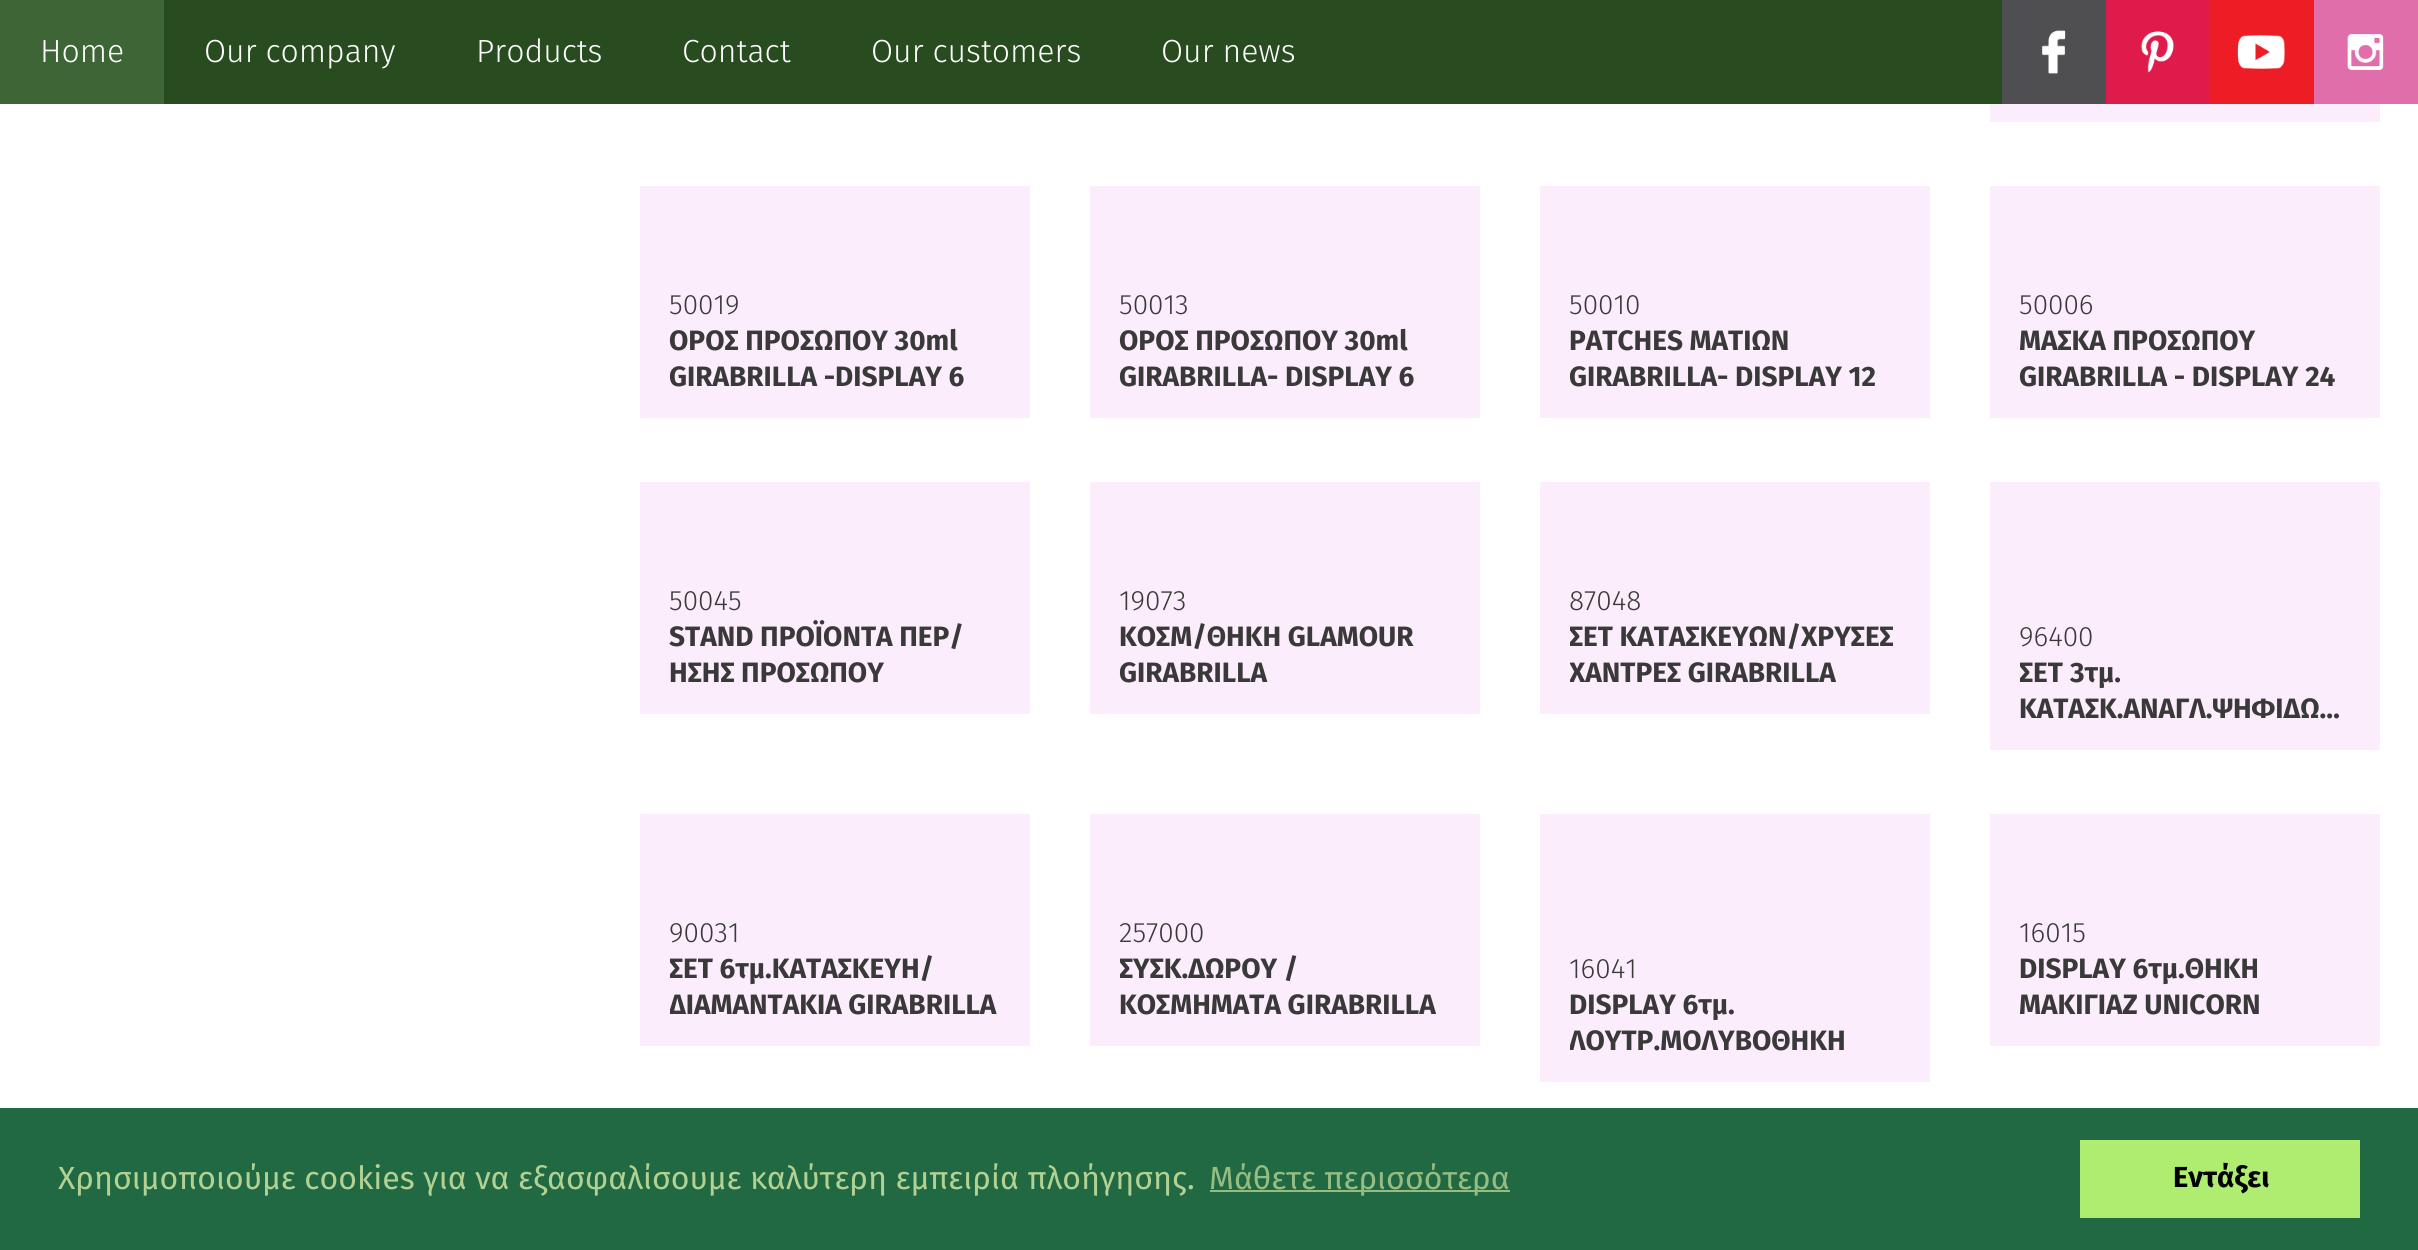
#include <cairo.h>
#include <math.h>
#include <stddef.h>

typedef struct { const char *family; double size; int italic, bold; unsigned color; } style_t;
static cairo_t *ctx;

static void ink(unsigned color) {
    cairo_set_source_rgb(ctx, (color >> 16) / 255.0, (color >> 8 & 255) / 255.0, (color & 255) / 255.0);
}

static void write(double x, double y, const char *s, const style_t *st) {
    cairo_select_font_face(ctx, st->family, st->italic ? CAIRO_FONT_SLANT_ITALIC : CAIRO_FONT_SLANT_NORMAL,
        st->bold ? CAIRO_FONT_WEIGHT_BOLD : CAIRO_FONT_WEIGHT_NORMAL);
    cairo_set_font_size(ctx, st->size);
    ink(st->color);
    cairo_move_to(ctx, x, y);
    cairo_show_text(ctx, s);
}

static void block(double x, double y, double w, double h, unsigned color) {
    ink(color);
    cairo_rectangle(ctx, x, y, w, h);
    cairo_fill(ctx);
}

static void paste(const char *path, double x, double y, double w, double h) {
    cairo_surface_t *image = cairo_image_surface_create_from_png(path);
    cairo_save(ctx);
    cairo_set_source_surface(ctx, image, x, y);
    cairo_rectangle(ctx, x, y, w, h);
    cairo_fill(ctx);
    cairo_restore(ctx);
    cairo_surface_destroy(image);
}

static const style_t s1 = {"Fira Sans Light", 32, 0, 0, 0xffffff};
static const style_t s2 = {"Fira Sans Light", 28, 0, 0, 0x3a3939};
static const style_t s3 = {"Fira Sans", 28, 0, 1, 0x3a3939};
static const style_t s4 = {"Fira Sans", 32, 0, 0, 0xb2d192};
static const style_t s5 = {"Fira Sans", 32, 0, 0, 0x95bc82};
static const style_t s6 = {"Fira Sans", 29, 0, 1, 0x000000};

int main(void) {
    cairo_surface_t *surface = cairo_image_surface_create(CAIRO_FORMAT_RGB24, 2418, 1250);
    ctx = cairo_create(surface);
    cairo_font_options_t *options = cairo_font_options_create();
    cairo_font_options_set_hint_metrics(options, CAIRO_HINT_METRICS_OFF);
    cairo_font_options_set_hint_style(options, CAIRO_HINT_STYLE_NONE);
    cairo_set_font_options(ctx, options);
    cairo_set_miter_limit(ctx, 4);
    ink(0xffffff);
    cairo_paint(ctx);
    block(164, 0, 1942, 104, 0x284c20);
    block(0, 0, 164, 104, 0x3e6536);
    write(40, 62, "Home", &s1);
    write(204, 62, "Our company", &s1);
    write(476, 62, "Products", &s1);
    write(682, 62, "Contact", &s1);
    write(871, 62, "Our customers", &s1);
    write(1161, 62, "Our news", &s1);
    paste("pic1.png", 2002, 0, 104, 104);
    paste("pic2.png", 2106, 0, 104, 104);
    paste("pic3.png", 2210, 0, 104, 104);
    paste("pic4.png", 2314, 0, 104, 104);
    block(1990, 104, 390, 18, 0xfbedfc);
    block(640, 186, 390, 232, 0xfbedfc);
    write(669, 314, "50019", &s2);
    write(669, 350, "ΟΡΟΣ ΠΡΟΣΩΠΟΥ 30ml", &s3);
    write(669, 386, "GIRABRILLA -DISPLAY 6", &s3);
    block(1090, 186, 390, 232, 0xfbedfc);
    write(1119, 314, "50013", &s2);
    write(1119, 350, "ΟΡΟΣ ΠΡΟΣΩΠΟΥ 30ml", &s3);
    write(1119, 386, "GIRABRILLA- DISPLAY 6", &s3);
    block(1540, 186, 390, 232, 0xfbedfc);
    write(1569, 314, "50010", &s2);
    write(1569, 350, "PATCHES ΜΑΤΙΩΝ", &s3);
    write(1569, 386, "GIRABRILLA- DISPLAY 12", &s3);
    block(1990, 186, 390, 232, 0xfbedfc);
    write(2019, 314, "50006", &s2);
    write(2019, 350, "ΜΑΣΚΑ ΠΡΟΣΩΠΟΥ", &s3);
    write(2019, 386, "GIRABRILLA - DISPLAY 24", &s3);
    block(640, 482, 390, 232, 0xfbedfc);
    write(669, 610, "50045", &s2);
    write(669, 646, "STAND ΠΡΟΪΟΝΤΑ ΠΕΡ/", &s3);
    write(669, 682, "ΗΣΗΣ ΠΡΟΣΩΠΟΥ", &s3);
    block(1090, 482, 390, 232, 0xfbedfc);
    write(1119, 610, "19073", &s2);
    write(1119, 646, "ΚΟΣΜ/ΘΗΚΗ GLAMOUR", &s3);
    write(1119, 682, "GIRABRILLA", &s3);
    block(1540, 482, 390, 232, 0xfbedfc);
    write(1569, 610, "87048", &s2);
    cairo_save(ctx);
    cairo_rectangle(ctx, 1570, 584, 330, 100);
    cairo_clip(ctx);
    write(1569, 646, "ΣEΤ ΚΑΤΑΣΚΕΥΩΝ/ΧΡΥΣΕΣ", &s3);
    write(1569, 682, "ΧΑΝΤΡΕΣ GIRABRILLA", &s3);
    cairo_restore(ctx);
    block(1990, 482, 390, 268, 0xfbedfc);
    write(2019, 646, "96400", &s2);
    cairo_save(ctx);
    cairo_rectangle(ctx, 2020, 620, 330, 100);
    cairo_clip(ctx);
    write(2019, 682, "ΣΕΤ", &s3);
    cairo_restore(ctx);
    write(2070, 682, "3τμ.", &s3);
    write(2019, 718, "ΚΑΤΑΣΚ.ΑΝΑΓΛ.ΨΗΦΙΔΩ…", &s3);
    block(640, 814, 390, 232, 0xfbedfc);
    write(669, 942, "90031", &s2);
    cairo_save(ctx);
    cairo_rectangle(ctx, 670, 916, 330, 100);
    cairo_clip(ctx);
    write(669, 978, "ΣΕΤ 6τμ.ΚΑΤΑΣΚΕΥΗ/", &s3);
    write(669, 1014, "ΔΙΑΜΑΝΤΑΚΙΑ GIRABRILLA", &s3);
    cairo_restore(ctx);
    block(1090, 814, 390, 232, 0xfbedfc);
    write(1119, 942, "257000", &s2);
    cairo_save(ctx);
    cairo_rectangle(ctx, 1120, 916, 330, 100);
    cairo_clip(ctx);
    write(1119, 978, "ΣΥΣΚ.ΔΩΡΟΥ /", &s3);
    cairo_restore(ctx);
    write(1119, 1014, "ΚΟΣΜΗΜΑΤΑ GIRABRILLA", &s3);
    block(1540, 814, 390, 268, 0xfbedfc);
    write(1569, 978, "16041", &s2);
    write(1569, 1014, "DISPLAY 6τμ.", &s3);
    cairo_save(ctx);
    cairo_rectangle(ctx, 1570, 952, 330, 100);
    cairo_clip(ctx);
    write(1569, 1050, "ΛΟΥΤΡ.ΜΟΛΥΒΟΘΗΚΗ", &s3);
    cairo_restore(ctx);
    block(1990, 814, 390, 232, 0xfbedfc);
    write(2019, 942, "16015", &s2);
    write(2019, 978, "DISPLAY 6τμ.ΘΗΚΗ", &s3);
    write(2019, 1014, "ΜΑΚΙΓΙΑΖ UNICORN", &s3);
    block(0, 1108, 2418, 142, 0x216942);
    write(58, 1189, "Χρησιμοποιούμε cookies για να εξασφαλίσουμε καλύτερη εμπειρία πλοήγησης.", &s4);
    block(1210, 1190, 300, 2, 0x95bc82);
    write(1209, 1189, "Μάθετε περισσότερα", &s5);
    block(2080, 1140, 280, 78, 0xafed71);
    write(2173, 1187, "Εντάξει", &s6);
    cairo_surface_write_to_png(surface, "screenshot.png");
    cairo_font_options_destroy(options);
    cairo_destroy(ctx);
    cairo_surface_destroy(surface);
    return 0;
}
